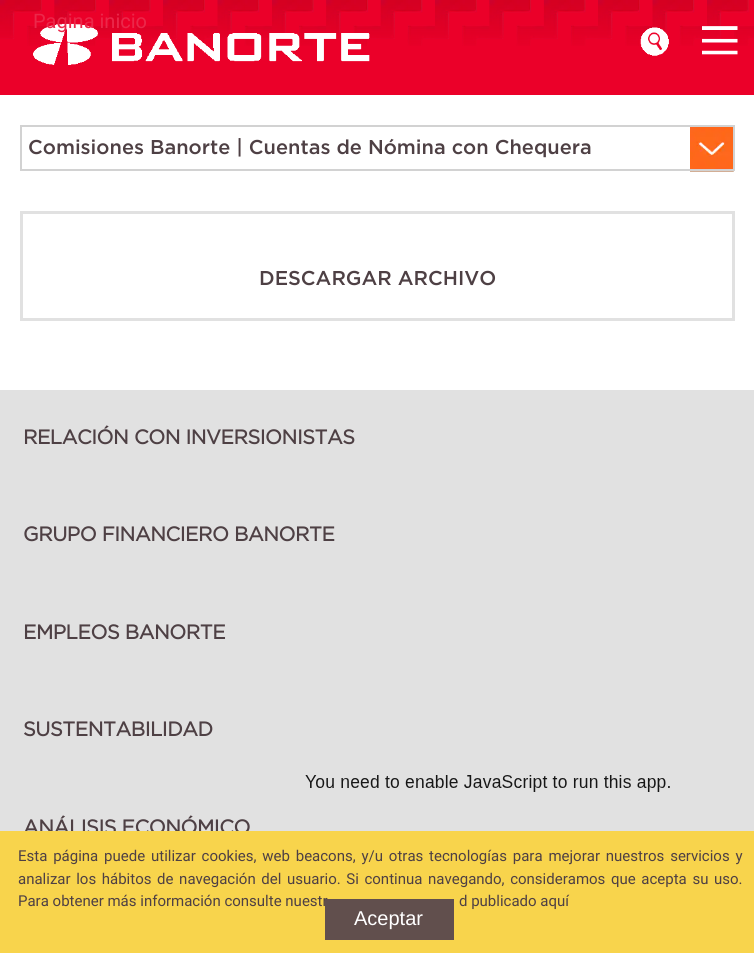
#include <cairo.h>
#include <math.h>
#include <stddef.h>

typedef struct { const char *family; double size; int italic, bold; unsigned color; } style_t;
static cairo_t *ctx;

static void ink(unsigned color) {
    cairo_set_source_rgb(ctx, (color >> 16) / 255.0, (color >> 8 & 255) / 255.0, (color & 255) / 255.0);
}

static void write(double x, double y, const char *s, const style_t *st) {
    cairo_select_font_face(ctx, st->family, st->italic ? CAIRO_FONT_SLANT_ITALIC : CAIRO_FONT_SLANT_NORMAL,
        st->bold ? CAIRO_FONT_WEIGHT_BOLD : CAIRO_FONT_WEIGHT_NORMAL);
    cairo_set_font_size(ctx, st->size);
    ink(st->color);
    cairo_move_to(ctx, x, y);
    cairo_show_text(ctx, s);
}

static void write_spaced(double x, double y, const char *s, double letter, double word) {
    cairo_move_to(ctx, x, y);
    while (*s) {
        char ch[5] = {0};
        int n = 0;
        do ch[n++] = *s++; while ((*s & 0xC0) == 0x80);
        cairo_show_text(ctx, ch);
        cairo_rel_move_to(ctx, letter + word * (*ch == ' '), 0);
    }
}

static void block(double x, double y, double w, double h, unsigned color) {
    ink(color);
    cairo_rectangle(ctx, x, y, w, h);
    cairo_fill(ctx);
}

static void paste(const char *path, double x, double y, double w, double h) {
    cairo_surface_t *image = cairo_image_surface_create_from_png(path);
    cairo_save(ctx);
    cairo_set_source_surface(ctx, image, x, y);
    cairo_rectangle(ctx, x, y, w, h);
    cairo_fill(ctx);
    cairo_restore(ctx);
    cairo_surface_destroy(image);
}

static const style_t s1 = {"Roboto", 20, 0, 0, 0xeb284a};
static const style_t s2 = {"Gotham Medium", 20, 0, 0, 0x4e4044};
static const style_t s3 = {"Roboto", 15, 0, 0, 0x4e4044};
static const style_t s4 = {"Liberation Sans", 20, 0, 0, 0xffffff};

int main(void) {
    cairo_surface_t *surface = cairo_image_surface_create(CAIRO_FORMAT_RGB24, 754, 953);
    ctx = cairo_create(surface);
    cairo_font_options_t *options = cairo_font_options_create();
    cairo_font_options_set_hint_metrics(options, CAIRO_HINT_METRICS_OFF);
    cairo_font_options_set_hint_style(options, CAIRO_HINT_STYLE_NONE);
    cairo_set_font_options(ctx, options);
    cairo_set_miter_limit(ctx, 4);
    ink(0xffffff);
    cairo_paint(ctx);
    block(0, 0, 754, 95, 0xeb0029);
    paste("pic1.png", 0, 0, 754, 46);
    paste("pic2.png", 33, 23, 337, 42);
    write(33, 28, "Pagina inicio", &s1);
    paste("pic3.png", 640, 27, 29, 29);
    paste("pic4.png", 702, 26, 36, 29);
    paste("pic5.png", 690, 127, 44, 45);
    cairo_rectangle(ctx, 20.5, 125.5, 714, 45);
    ink(0xd2d2d2);
    cairo_set_line_width(ctx, 1);
    cairo_stroke(ctx);
    cairo_rectangle(ctx, 21.5, 126.5, 712, 43);
    cairo_stroke(ctx);
    write(28, 154, "Comisiones Banorte | Cuentas de Nómina con Chequera", &s2);
    cairo_rectangle(ctx, 21.5, 212.5, 712, 107);
    ink(0xe1e1e1);
    cairo_set_line_width(ctx, 3);
    cairo_stroke(ctx);
    write(259, 285, "DESCARGAR ARCHIVO", &s2);
    block(0, 390, 754, 441, 0xe1e1e1);
    cairo_select_font_face(ctx, "Gotham", CAIRO_FONT_SLANT_NORMAL, CAIRO_FONT_WEIGHT_BOLD);
    ink(0x4e4044);
    write_spaced(23, 444, "RELACIÓN CON INVERSIONISTAS", -0.5, 0);
    write_spaced(23, 541, "GRUPO FINANCIERO BANORTE", -0.5, 0);
    write_spaced(23, 639, "EMPLEOS BANORTE", -0.5, 0);
    write_spaced(23, 736, "SUSTENTABILIDAD", -0.5, 0);
    write_spaced(23, 834, "ANÁLISIS ECONÓMICO", -0.5, 0);
    paste("pic6.png", 305, 775, 365, 17);
    block(0, 831, 754, 122, 0xf8d44c);
    cairo_select_font_face(ctx, "Roboto", CAIRO_FONT_SLANT_NORMAL, CAIRO_FONT_WEIGHT_NORMAL);
    cairo_set_font_size(ctx, 15);
    ink(0x4e4044);
    write_spaced(18, 861, "Esta página puede utilizar cookies, web beacons, y/u otras tecnologías para mejorar nuestros servicios y", 0, 2.1);
    write_spaced(18, 884, "analizar los hábitos de navegación del usuario. Si continua navegando, consideramos que acepta su uso.", 0, 1.9);
    write(18, 906, "Para obtener más información consulte nuestr", &s3);
    write(459, 906, "d publicado aquí", &s3);
    block(325, 899, 129, 41, 0x614f4d);
    write(354, 925, "Aceptar", &s4);
    cairo_surface_write_to_png(surface, "screenshot.png");
    cairo_font_options_destroy(options);
    cairo_destroy(ctx);
    cairo_surface_destroy(surface);
    return 0;
}
